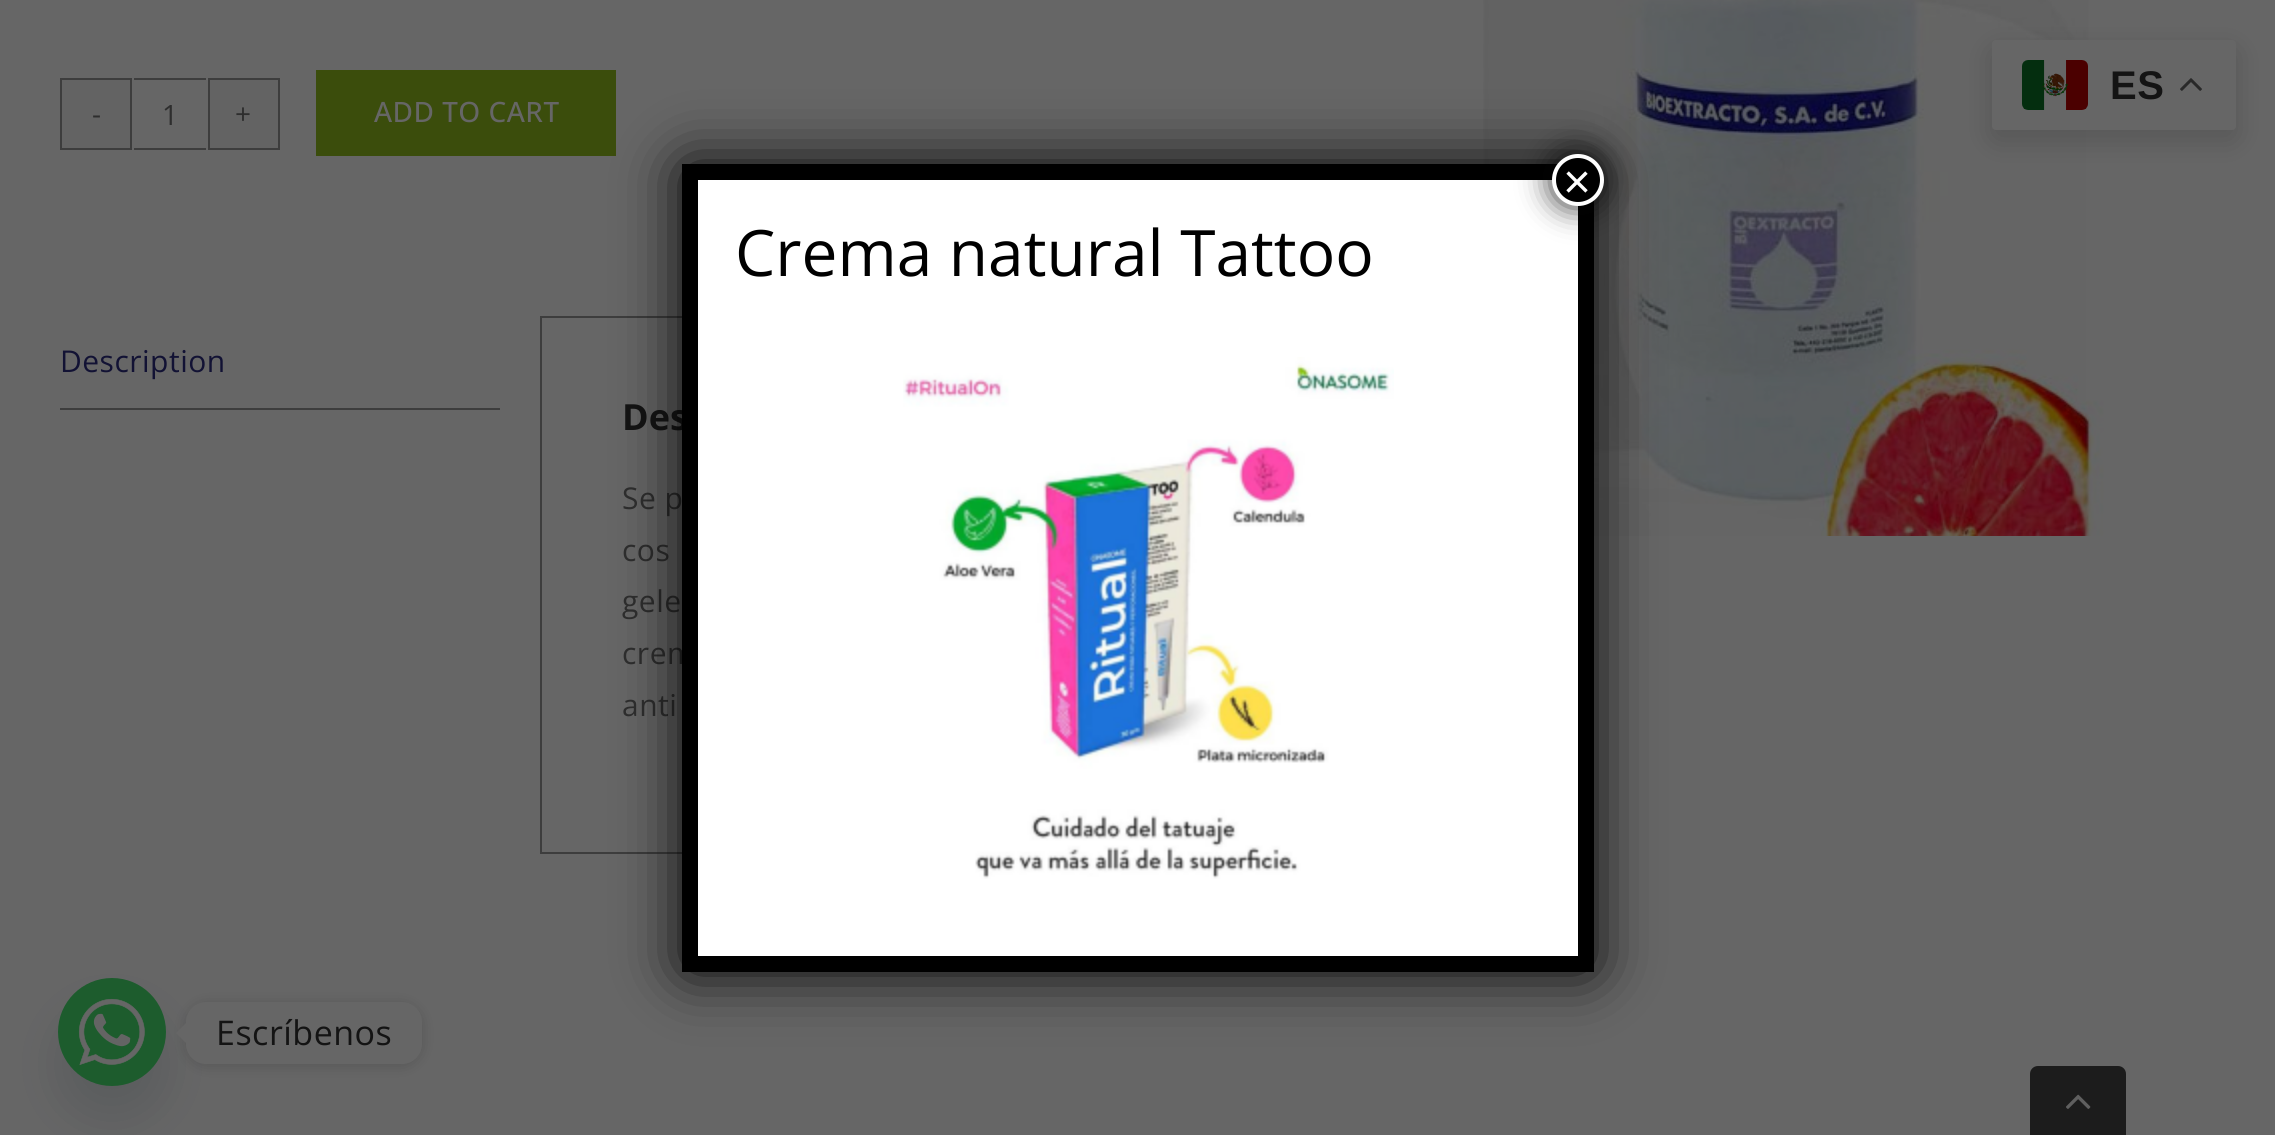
#include <cairo.h>
#include <math.h>
#include <stddef.h>

typedef struct { const char *family; double size; int italic, bold; unsigned color; } style_t;
static cairo_t *ctx;

static void ink(unsigned color) {
    cairo_set_source_rgb(ctx, (color >> 16) / 255.0, (color >> 8 & 255) / 255.0, (color & 255) / 255.0);
}

static void write(double x, double y, const char *s, const style_t *st) {
    cairo_select_font_face(ctx, st->family, st->italic ? CAIRO_FONT_SLANT_ITALIC : CAIRO_FONT_SLANT_NORMAL,
        st->bold ? CAIRO_FONT_WEIGHT_BOLD : CAIRO_FONT_WEIGHT_NORMAL);
    cairo_set_font_size(ctx, st->size);
    ink(st->color);
    cairo_move_to(ctx, x, y);
    cairo_show_text(ctx, s);
}

static void write_spaced(double x, double y, const char *s, double letter, double word) {
    cairo_move_to(ctx, x, y);
    while (*s) {
        char ch[5] = {0};
        int n = 0;
        do ch[n++] = *s++; while ((*s & 0xC0) == 0x80);
        cairo_show_text(ctx, ch);
        cairo_rel_move_to(ctx, letter + word * (*ch == ' '), 0);
    }
}

static void block(double x, double y, double w, double h, unsigned color) {
    ink(color);
    cairo_rectangle(ctx, x, y, w, h);
    cairo_fill(ctx);
}

static void round_path(double x, double y, double w, double h, double r) {
    cairo_new_sub_path(ctx);
    cairo_arc(ctx, x + w - r, y + h - r, r, 0, M_PI / 2);
    cairo_arc(ctx, x + r, y + h - r, r, M_PI / 2, M_PI);
    cairo_arc(ctx, x + r, y + r, r, M_PI, 1.5 * M_PI);
    cairo_arc(ctx, x + w - r, y + r, r, 1.5 * M_PI, 2 * M_PI);
    cairo_close_path(ctx);
}

static void blur_box(double x, double y, double w, double h, double r, double blur, double alpha) {
    cairo_push_group_with_content(ctx, CAIRO_CONTENT_ALPHA);
    cairo_set_operator(ctx, CAIRO_OPERATOR_SOURCE);
    for (int i = 15; i >= -15 && fmin(w, h) + blur * i / 3 > 0; i -= 2) {
        double e = blur * i / 6;
        cairo_set_source_rgba(ctx, 0, 0, 0, alpha * erfc((i - 1) / 8.5) / 2);
        round_path(x - e, y - e, w + 2 * e, h + 2 * e, fmax(0, fmin(r + e + blur * .6, fmin(w, h) / 2 + e)));
        cairo_fill(ctx);
    }
    cairo_pattern_t *soft = cairo_pop_group(ctx);
    cairo_mask(ctx, soft);
    cairo_pattern_destroy(soft);
}

static void paste(const char *path, double x, double y, double w, double h) {
    cairo_surface_t *image = cairo_image_surface_create_from_png(path);
    cairo_save(ctx);
    cairo_set_source_surface(ctx, image, x, y);
    cairo_rectangle(ctx, x, y, w, h);
    cairo_fill(ctx);
    cairo_restore(ctx);
    cairo_surface_destroy(image);
}

static const style_t s1 = {"Open Sans", 28, 0, 0, 0x2e2e2e};
static const style_t s2 = {"Open Sans", 36, 0, 1, 0x141414};
static const style_t s3 = {"Liberation Sans", 48, 0, 0, 0xffffff};
static const style_t s4 = {"Open Sans", 64, 0, 0, 0x000000};

int main(void) {
    cairo_surface_t *surface = cairo_image_surface_create(CAIRO_FORMAT_RGB24, 2275, 1135);
    ctx = cairo_create(surface);
    cairo_font_options_t *options = cairo_font_options_create();
    cairo_font_options_set_hint_metrics(options, CAIRO_HINT_METRICS_OFF);
    cairo_font_options_set_hint_style(options, CAIRO_HINT_STYLE_NONE);
    cairo_set_font_options(ctx, options);
    cairo_set_miter_limit(ctx, 4);
    ink(0x666666);
    cairo_paint(ctx);
    ink(0x636363);
    cairo_rectangle(ctx, 61, 79, 70, 70);
    cairo_fill_preserve(ctx);
    ink(0x3d3d3d);
    cairo_stroke(ctx);
    write(92, 124, "-", &s1);
    block(134, 78, 72, 2, 0x3d3d3d);
    block(134, 148, 72, 2, 0x3d3d3d);
    write(162, 125, "1", &s1);
    ink(0x636363);
    cairo_rectangle(ctx, 209, 79, 70, 70);
    cairo_fill_preserve(ctx);
    ink(0x3d3d3d);
    cairo_stroke(ctx);
    write(235, 124, "+", &s1);
    block(316, 70, 300, 86, 0x3b4d0c);
    cairo_select_font_face(ctx, "Open Sans Medium", CAIRO_FONT_SLANT_NORMAL, CAIRO_FONT_WEIGHT_NORMAL);
    ink(0x666666);
    write_spaced(374, 122, "ADD TO CART", 0.5, 0);
    block(60, 408, 440, 2, 0x3d3d3d);
    cairo_select_font_face(ctx, "Open Sans", CAIRO_FONT_SLANT_NORMAL, CAIRO_FONT_WEIGHT_NORMAL);
    cairo_set_font_size(ctx, 30);
    ink(0x121234);
    write_spaced(60, 372, "Description", 0.5, 0);
    cairo_rectangle(ctx, 541, 317, 760, 536);
    ink(0x3d3d3d);
    cairo_stroke(ctx);
    write(622, 430, "Des", &s2);
    cairo_select_font_face(ctx, "Open Sans", CAIRO_FONT_SLANT_NORMAL, CAIRO_FONT_WEIGHT_NORMAL);
    cairo_set_font_size(ctx, 30);
    ink(0x2e2e2e);
    write_spaced(622, 509, "Se p", 0.5, 0);
    write_spaced(622, 561, "cos", 0.5, 0);
    write_spaced(622, 612, "gele", 0.5, 0);
    write_spaced(622, 664, "crem", 0.5, 0);
    write_spaced(622, 716, "anti", 0.5, 0);
    paste("pic1.png", 1483, 0, 621, 536);
    ink(0x000000);
    blur_box(1992, 50, 244, 90, 4, 15, 0.15);
    ink(0x666666);
    round_path(1992, 40, 244, 90, 4);
    cairo_fill(ctx);
    paste("pic2.png", 2022, 60, 66, 50);
    cairo_select_font_face(ctx, "Liberation Sans", CAIRO_FONT_SLANT_NORMAL, CAIRO_FONT_WEIGHT_BOLD);
    cairo_set_font_size(ctx, 40);
    ink(0x141414);
    write_spaced(2110, 99, "ES", 0.5, 0);
    paste("pic3.png", 2180, 78, 22, 13);
    ink(0x020202);
    blur_box(682, 164, 912, 808, 6, 30, 1);
    block(698, 180, 880, 776, 0xffffff);
    cairo_new_path(ctx);
    cairo_move_to(ctx, 690, 172);
    cairo_line_to(ctx, 1586, 172);
    cairo_line_to(ctx, 1586, 964);
    cairo_line_to(ctx, 690, 964);
    cairo_close_path(ctx);
    ink(0x000000);
    cairo_set_line_width(ctx, 16);
    cairo_stroke(ctx);
    ink(0x020202);
    blur_box(1550, 152, 56, 56, 28, 15, 0.75);
    ink(0x000000);
    cairo_arc(ctx, 1578, 180, 24, 0, 2 * M_PI);
    cairo_fill_preserve(ctx);
    ink(0xffffff);
    cairo_set_line_width(ctx, 4);
    cairo_stroke(ctx);
    write(1563, 198, "×", &s3);
    write(735, 276, "Crema natural Tattoo", &s4);
    paste("pic4.png", 903, 357, 491, 522);
    ink(0x1d2a32);
    blur_box(58, 1010, 108, 108, 54, 24, 0.16);
    paste("pic5.png", 58, 978, 108, 108);
    ink(0x000000);
    blur_box(186, 1004, 236, 62, 20, 7.5, 0.15);
    ink(0x666666);
    round_path(186, 1002, 236, 62, 20);
    cairo_fill(ctx);
    cairo_new_path(ctx);
    cairo_move_to(ctx, 186, 1023);
    cairo_line_to(ctx, 186, 1043);
    cairo_line_to(ctx, 176, 1033);
    cairo_close_path(ctx);
    cairo_fill(ctx);
    cairo_set_font_size(ctx, 34);
    ink(0x141414);
    write_spaced(216, 1045, "Escríbenos", 0.5, 0);
    ink(0x1c1c1c);
    cairo_new_path(ctx);
    cairo_move_to(ctx, 2038, 1066);
    cairo_line_to(ctx, 2118, 1066);
    cairo_curve_to(ctx, 2122.5, 1066, 2126, 1069.5, 2126, 1074);
    cairo_line_to(ctx, 2126, 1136);
    cairo_line_to(ctx, 2030, 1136);
    cairo_line_to(ctx, 2030, 1074);
    cairo_curve_to(ctx, 2030, 1069.5, 2033.5, 1066, 2038, 1066);
    cairo_close_path(ctx);
    cairo_fill(ctx);
    paste("pic6.png", 2066, 1094, 25, 15);
    cairo_surface_write_to_png(surface, "screenshot.png");
    cairo_font_options_destroy(options);
    cairo_destroy(ctx);
    cairo_surface_destroy(surface);
    return 0;
}
